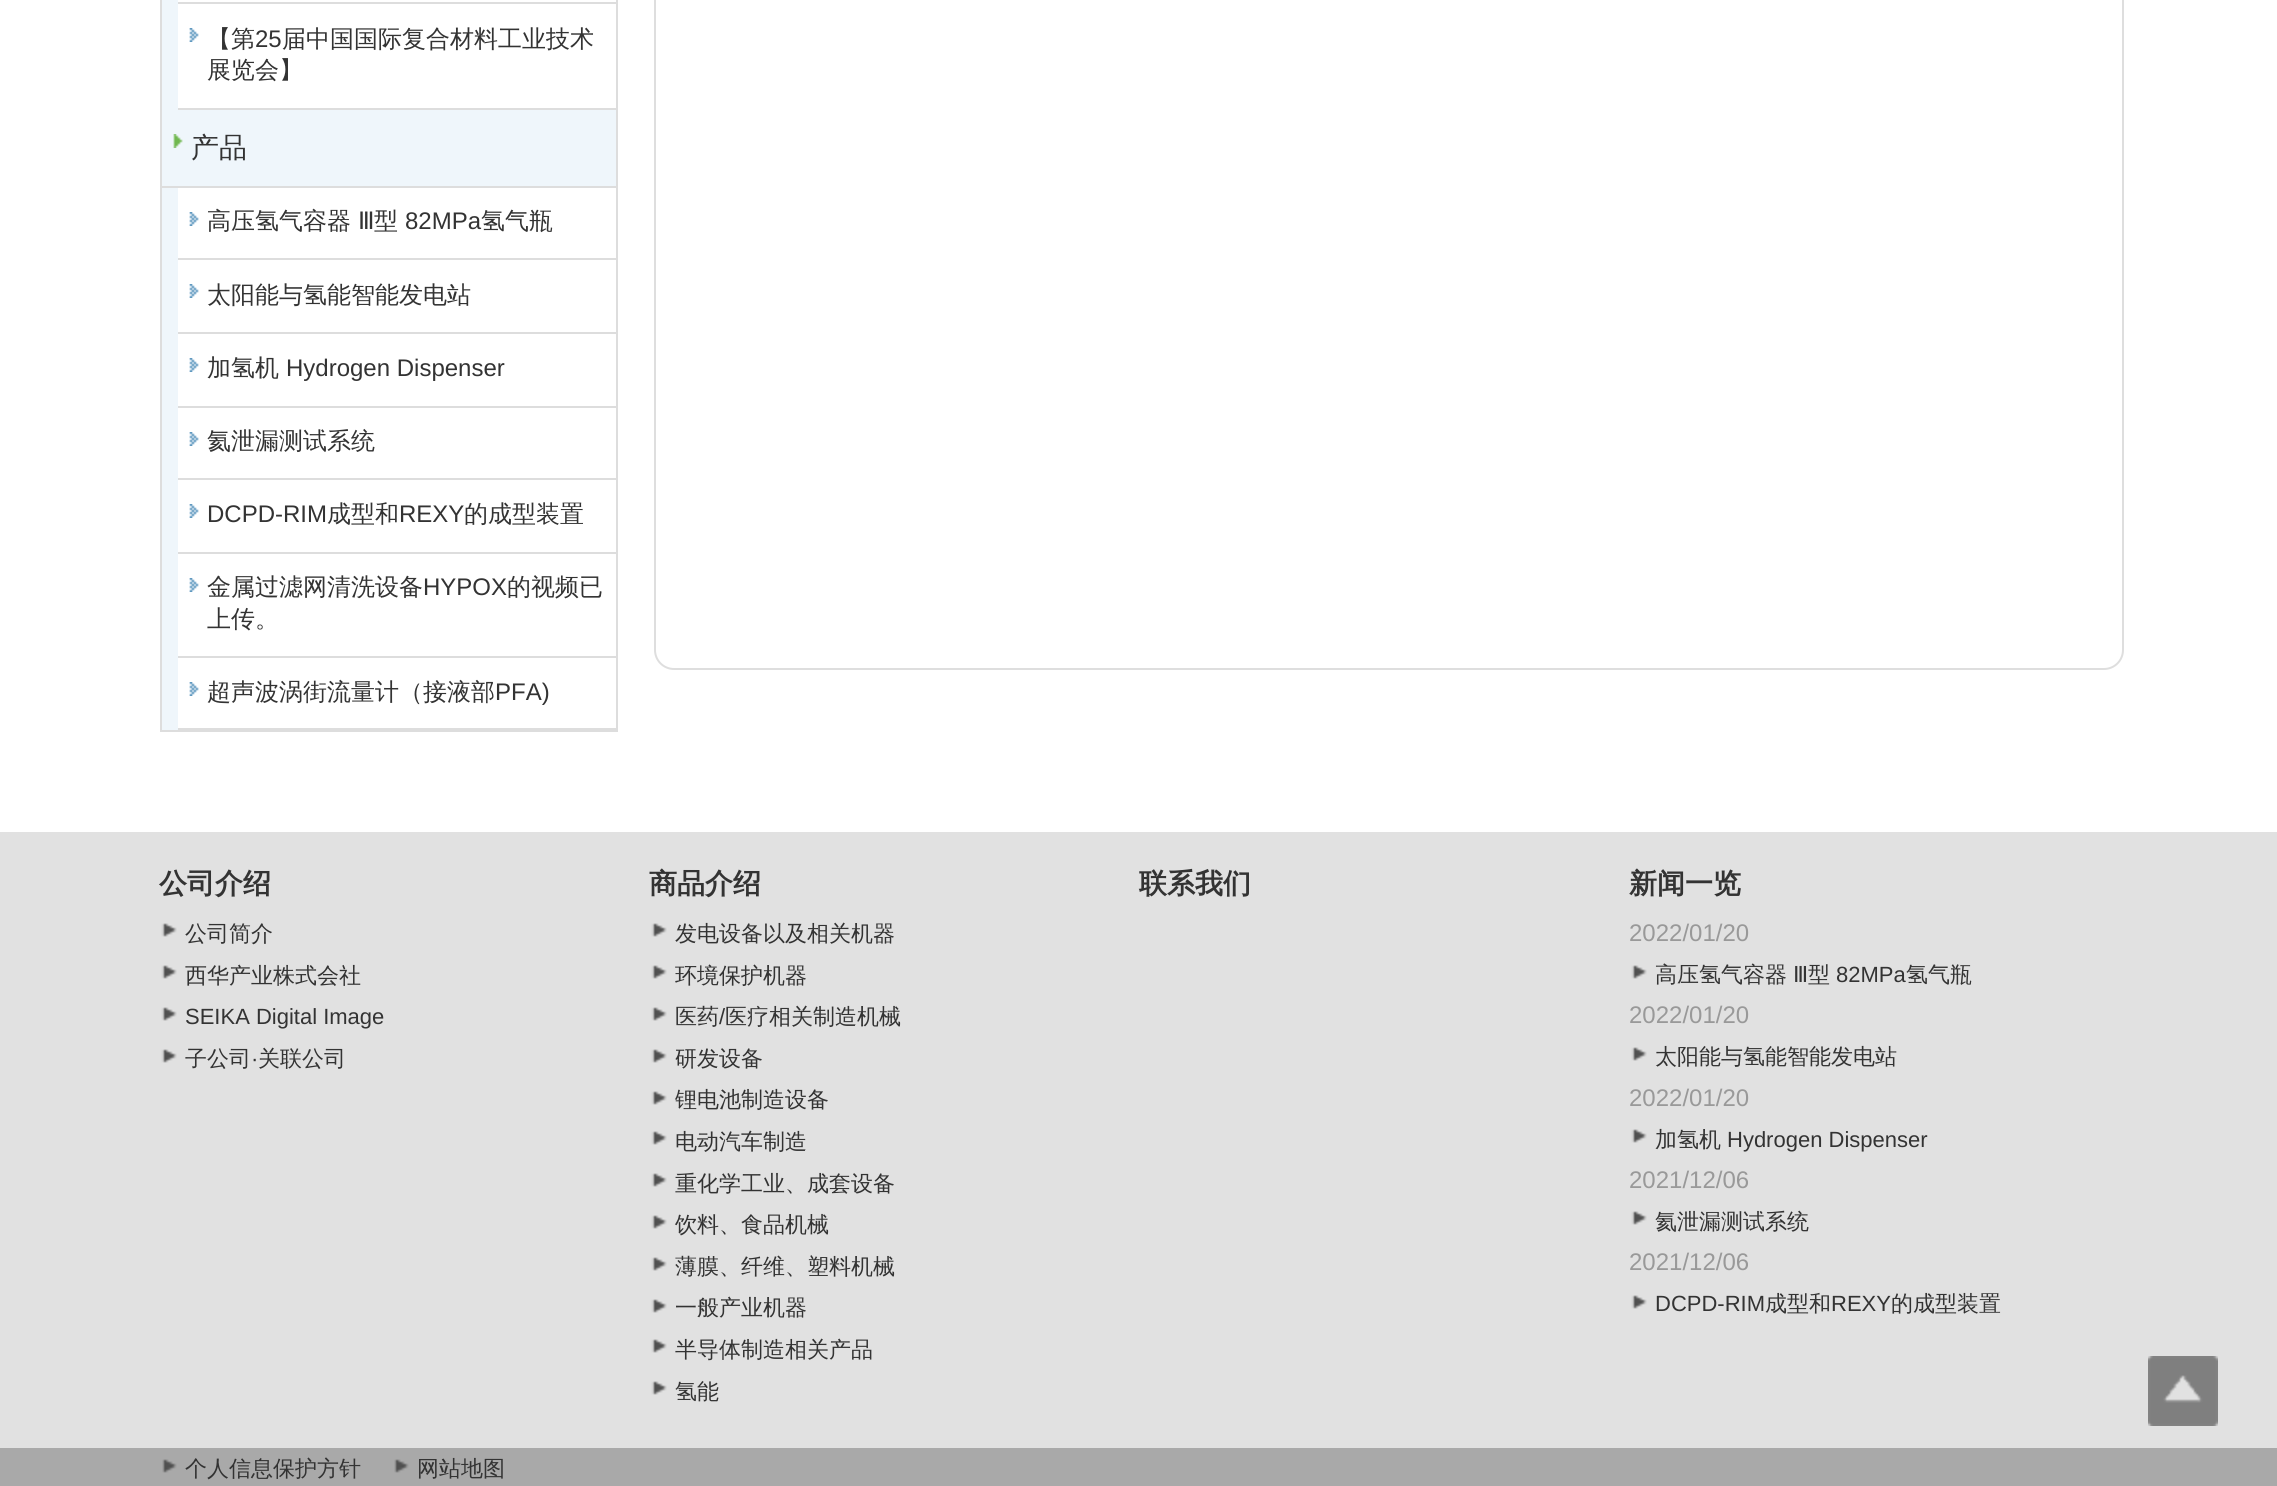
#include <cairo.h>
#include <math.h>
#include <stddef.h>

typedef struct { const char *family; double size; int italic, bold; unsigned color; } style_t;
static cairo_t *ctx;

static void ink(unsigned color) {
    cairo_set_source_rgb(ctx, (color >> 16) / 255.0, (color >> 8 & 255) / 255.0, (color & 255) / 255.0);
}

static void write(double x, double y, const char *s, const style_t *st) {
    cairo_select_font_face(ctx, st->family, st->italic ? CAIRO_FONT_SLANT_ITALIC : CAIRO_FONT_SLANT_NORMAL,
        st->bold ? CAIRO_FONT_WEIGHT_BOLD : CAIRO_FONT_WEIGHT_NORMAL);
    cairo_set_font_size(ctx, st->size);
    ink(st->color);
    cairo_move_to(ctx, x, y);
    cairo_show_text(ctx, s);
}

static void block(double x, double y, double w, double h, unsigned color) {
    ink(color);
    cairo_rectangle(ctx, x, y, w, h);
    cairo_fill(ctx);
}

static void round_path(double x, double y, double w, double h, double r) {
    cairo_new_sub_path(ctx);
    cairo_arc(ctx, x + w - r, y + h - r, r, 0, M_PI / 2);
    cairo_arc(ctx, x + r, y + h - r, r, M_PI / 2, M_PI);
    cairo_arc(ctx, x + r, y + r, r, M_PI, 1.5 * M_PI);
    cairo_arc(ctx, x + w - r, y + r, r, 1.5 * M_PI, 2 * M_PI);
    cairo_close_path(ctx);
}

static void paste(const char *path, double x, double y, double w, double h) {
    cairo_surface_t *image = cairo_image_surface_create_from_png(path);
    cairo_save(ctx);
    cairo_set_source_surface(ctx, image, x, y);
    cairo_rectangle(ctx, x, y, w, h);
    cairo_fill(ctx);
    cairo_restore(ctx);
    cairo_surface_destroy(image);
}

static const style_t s1 = {"WenQuanYi Zen Hei Medium", 24, 0, 0, 0x333333};
static const style_t s2 = {"Liberation Sans", 24, 0, 0, 0x333333};
static const style_t s3 = {"WenQuanYi Zen Hei Medium", 28, 0, 0, 0x333333};
static const style_t s4 = {"DejaVu Sans", 24, 0, 0, 0x333333};
static const style_t s5 = {"WenQuanYi Zen Hei", 28, 0, 1, 0x333333};
static const style_t s6 = {"WenQuanYi Zen Hei Medium", 22, 0, 0, 0x333333};
static const style_t s7 = {"Liberation Sans", 22, 0, 0, 0x333333};
static const style_t s8 = {"Liberation Sans", 24, 0, 0, 0x999999};
static const style_t s9 = {"DejaVu Sans", 22, 0, 0, 0x333333};

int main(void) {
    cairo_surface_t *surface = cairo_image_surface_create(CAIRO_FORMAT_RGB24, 2277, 1486);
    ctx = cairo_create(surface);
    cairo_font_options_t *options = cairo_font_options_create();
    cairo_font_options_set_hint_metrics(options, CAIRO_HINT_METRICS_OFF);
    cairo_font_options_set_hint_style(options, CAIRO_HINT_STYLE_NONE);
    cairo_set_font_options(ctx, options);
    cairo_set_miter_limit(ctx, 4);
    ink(0xffffff);
    cairo_paint(ctx);
    ink(0xeff6fb);
    cairo_rectangle(ctx, 161, -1, 456, 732);
    cairo_fill_preserve(ctx);
    ink(0xdddddd);
    cairo_stroke(ctx);
    block(178, 0, 438, 108, 0xffffff);
    block(178, 2, 438, 2, 0xdddddd);
    block(178, 108, 438, 2, 0xdddddd);
    paste("pic1.png", 189, 28, 10, 14);
    write(207, 47, "【第", &s1);
    write(255, 47, "25", &s2);
    write(282, 47, "届中国国际复合材料工业技术", &s1);
    write(207, 78, "展览会】", &s1);
    block(162, 186, 454, 2, 0xdddddd);
    paste("pic2.png", 173, 134, 10, 14);
    write(191, 157, "产品", &s3);
    block(178, 188, 438, 540, 0xffffff);
    block(178, 258, 438, 2, 0xdddddd);
    paste("pic1.png", 189, 212, 10, 14);
    write(207, 229, "高压氢气容器", &s1);
    write(358, 229, "Ⅲ", &s4);
    write(374, 229, "型", &s1);
    write(405, 229, "82MPa", &s2);
    write(481, 229, "氢气瓶", &s1);
    block(178, 332, 438, 2, 0xdddddd);
    paste("pic1.png", 189, 284, 10, 14);
    write(207, 303, "太阳能与氢能智能发电站", &s1);
    block(178, 406, 438, 2, 0xdddddd);
    paste("pic1.png", 189, 358, 10, 14);
    write(207, 376, "加氢机", &s1);
    write(286, 376, "Hydrogen Dispenser", &s2);
    block(178, 478, 438, 2, 0xdddddd);
    paste("pic1.png", 189, 432, 10, 14);
    write(207, 449, "氦泄漏测试系统", &s1);
    block(178, 552, 438, 2, 0xdddddd);
    paste("pic1.png", 189, 504, 10, 14);
    write(207, 522, "DCPD-RIM", &s2);
    write(327, 522, "成型和", &s1);
    write(399, 522, "REXY", &s2);
    write(464, 522, "的成型装置", &s1);
    block(178, 656, 438, 2, 0xdddddd);
    paste("pic1.png", 189, 578, 10, 14);
    write(207, 595, "金属过滤网清洗设备", &s1);
    write(423, 595, "HYPOX", &s2);
    write(507, 595, "的视频已", &s1);
    write(207, 627, "上传。", &s1);
    block(178, 728, 438, 2, 0xdddddd);
    paste("pic1.png", 189, 682, 10, 14);
    write(207, 700, "超声波涡街流量计（接液部", &s1);
    write(495, 700, "PFA)", &s2);
    round_path(655, -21, 1468, 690, 19);
    ink(0xdedede);
    cairo_stroke(ctx);
    block(0, 832, 2277, 616, 0xe1e1e1);
    write(159, 893, "公司介绍", &s5);
    paste("pic3.png", 161, 923, 16, 14);
    write(185, 941, "公司简介", &s6);
    paste("pic3.png", 161, 965, 16, 14);
    write(185, 983, "西华产业株式会社", &s6);
    paste("pic3.png", 161, 1007, 16, 14);
    write(185, 1024, "SEIKA Digital Image", &s7);
    paste("pic3.png", 161, 1049, 16, 14);
    write(185, 1066, "子公司", &s6);
    write(251, 1066, "·", &s7);
    write(258, 1066, "关联公司", &s6);
    write(649, 893, "商品介绍", &s5);
    paste("pic3.png", 651, 923, 16, 14);
    write(675, 941, "发电设备以及相关机器", &s6);
    paste("pic3.png", 651, 965, 16, 14);
    write(675, 983, "环境保护机器", &s6);
    paste("pic3.png", 651, 1007, 16, 14);
    write(675, 1024, "医药", &s6);
    write(719, 1024, "/", &s7);
    write(725, 1024, "医疗相关制造机械", &s6);
    paste("pic3.png", 651, 1049, 16, 14);
    write(675, 1066, "研发设备", &s6);
    paste("pic3.png", 651, 1091, 16, 14);
    write(675, 1107, "锂电池制造设备", &s6);
    paste("pic3.png", 651, 1131, 16, 14);
    write(675, 1149, "电动汽车制造", &s6);
    paste("pic3.png", 651, 1173, 16, 14);
    write(675, 1191, "重化学工业、成套设备", &s6);
    paste("pic3.png", 651, 1215, 16, 14);
    write(675, 1232, "饮料、食品机械", &s6);
    paste("pic3.png", 651, 1257, 16, 14);
    write(675, 1274, "薄膜、纤维、塑料机械", &s6);
    paste("pic3.png", 651, 1299, 16, 14);
    write(675, 1315, "一般产业机器", &s6);
    paste("pic3.png", 651, 1339, 16, 14);
    write(675, 1357, "半导体制造相关产品", &s6);
    paste("pic3.png", 651, 1381, 16, 14);
    write(675, 1399, "氢能", &s6);
    write(1139, 893, "联系我们", &s5);
    write(1629, 893, "新闻一览", &s5);
    write(1629, 941, "2022/01/20", &s8);
    paste("pic3.png", 1631, 965, 16, 14);
    write(1655, 982, "高压氢气容器", &s6);
    write(1793, 982, "Ⅲ", &s9);
    write(1808, 982, "型", &s6);
    write(1836, 982, "82MPa", &s7);
    write(1906, 982, "氢气瓶", &s6);
    write(1629, 1023, "2022/01/20", &s8);
    paste("pic3.png", 1631, 1047, 16, 14);
    write(1655, 1064, "太阳能与氢能智能发电站", &s6);
    write(1629, 1106, "2022/01/20", &s8);
    paste("pic3.png", 1631, 1129, 16, 14);
    write(1655, 1147, "加氢机", &s6);
    write(1727, 1147, "Hydrogen Dispenser", &s7);
    write(1629, 1188, "2021/12/06", &s8);
    paste("pic3.png", 1631, 1211, 16, 14);
    write(1655, 1229, "氦泄漏测试系统", &s6);
    write(1629, 1270, "2021/12/06", &s8);
    paste("pic3.png", 1631, 1295, 16, 14);
    write(1655, 1311, "DCPD-RIM", &s7);
    write(1765, 1311, "成型和", &s6);
    write(1831, 1311, "REXY", &s7);
    write(1891, 1311, "的成型装置", &s6);
    block(0, 1448, 2277, 38, 0xa9a9a9);
    paste("pic4.png", 162, 1459, 15, 14);
    write(185, 1476, "个人信息保护方针", &s6);
    paste("pic4.png", 394, 1459, 15, 14);
    write(417, 1476, "网站地图", &s6);
    paste("pic5.png", 2148, 1356, 70, 70);
    cairo_surface_write_to_png(surface, "screenshot.png");
    cairo_font_options_destroy(options);
    cairo_destroy(ctx);
    cairo_surface_destroy(surface);
    return 0;
}
